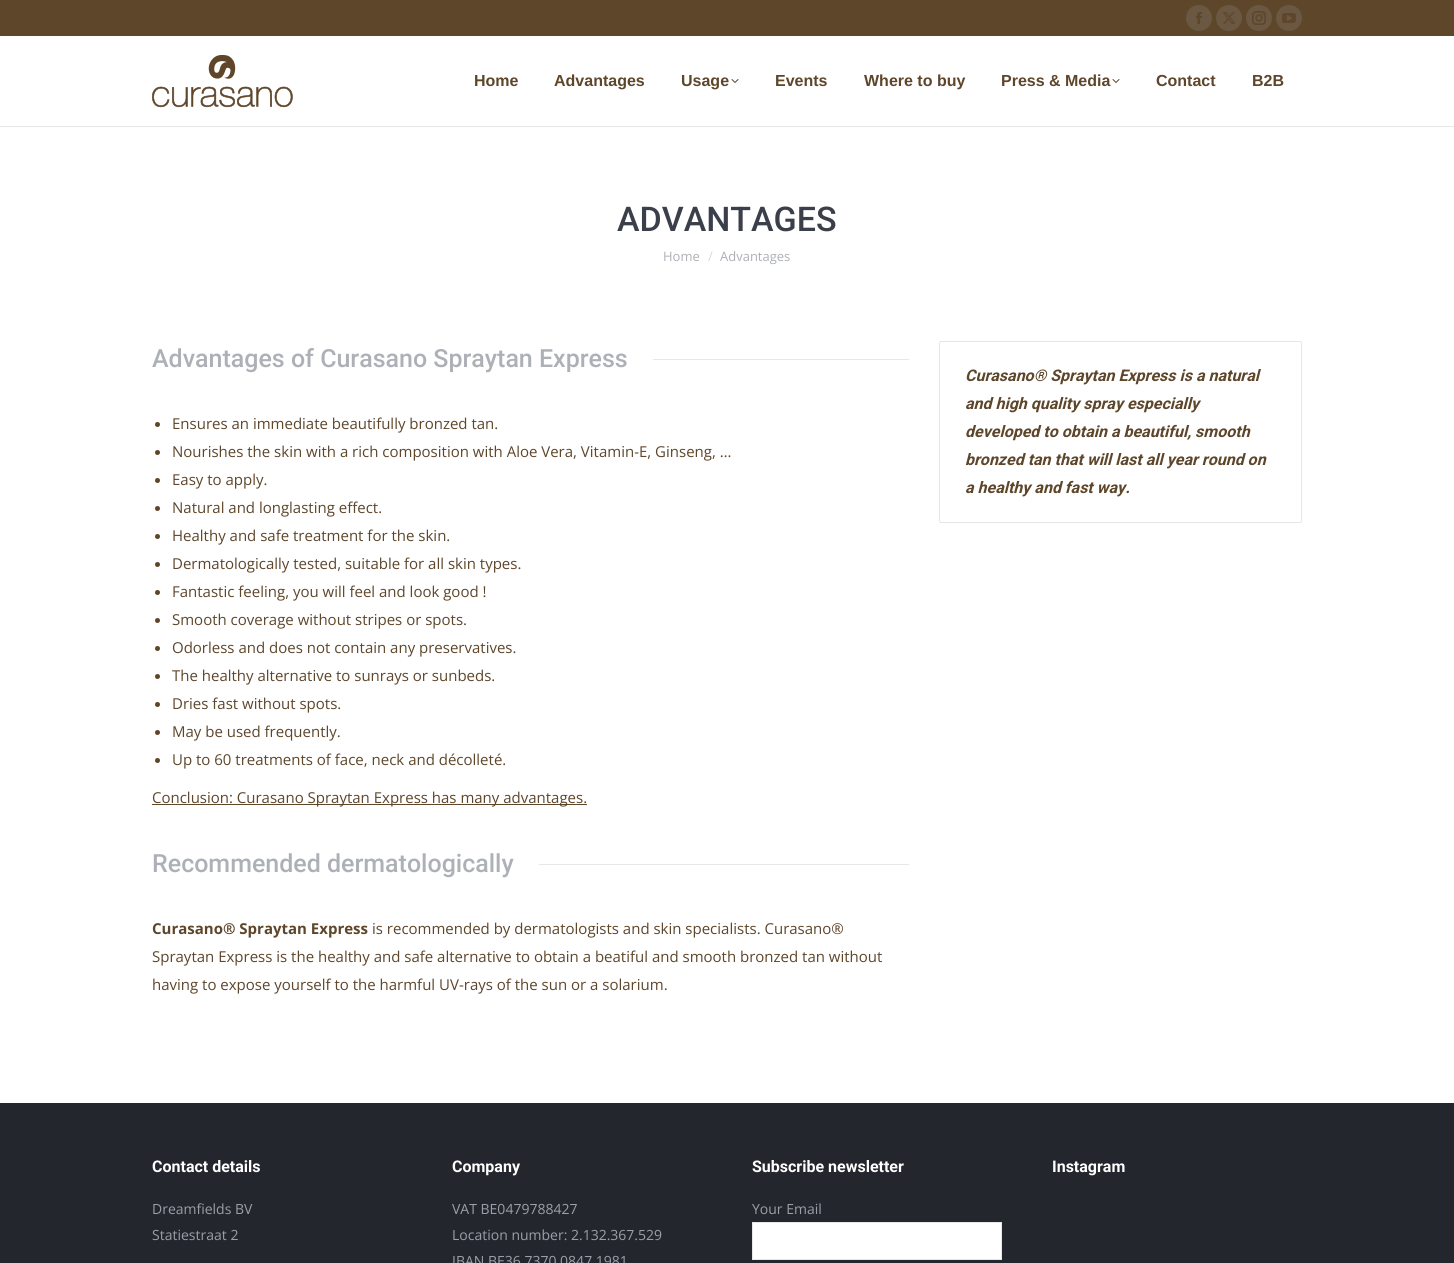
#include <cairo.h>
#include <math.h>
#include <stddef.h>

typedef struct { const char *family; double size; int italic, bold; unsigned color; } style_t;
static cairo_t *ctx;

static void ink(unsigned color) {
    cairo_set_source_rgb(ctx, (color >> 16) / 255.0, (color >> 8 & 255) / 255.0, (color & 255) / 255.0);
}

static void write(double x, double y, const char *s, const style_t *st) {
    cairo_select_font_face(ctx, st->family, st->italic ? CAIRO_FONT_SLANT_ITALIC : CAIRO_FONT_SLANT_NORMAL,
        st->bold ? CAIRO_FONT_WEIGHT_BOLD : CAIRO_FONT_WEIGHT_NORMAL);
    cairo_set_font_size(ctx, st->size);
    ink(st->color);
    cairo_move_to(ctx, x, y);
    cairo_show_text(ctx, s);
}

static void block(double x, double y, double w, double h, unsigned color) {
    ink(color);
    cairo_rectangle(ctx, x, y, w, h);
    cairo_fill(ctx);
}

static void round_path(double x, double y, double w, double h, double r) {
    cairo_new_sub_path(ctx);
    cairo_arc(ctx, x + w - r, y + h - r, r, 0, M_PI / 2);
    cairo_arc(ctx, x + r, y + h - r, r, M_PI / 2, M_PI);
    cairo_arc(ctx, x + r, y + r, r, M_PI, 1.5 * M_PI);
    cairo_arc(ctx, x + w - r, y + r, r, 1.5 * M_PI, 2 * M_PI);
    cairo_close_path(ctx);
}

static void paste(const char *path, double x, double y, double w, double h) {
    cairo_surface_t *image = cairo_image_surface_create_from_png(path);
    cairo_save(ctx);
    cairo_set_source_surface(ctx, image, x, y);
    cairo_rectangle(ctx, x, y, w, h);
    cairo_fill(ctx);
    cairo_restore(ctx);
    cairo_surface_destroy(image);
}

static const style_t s1 = {"Liberation Sans", 16, 0, 1, 0x5e462b};
static const style_t s2 = {"Roboto Medium", 34, 0, 0, 0x3b3f4a};
static const style_t s3 = {"Open Sans", 13, 0, 0, 0xadb0b6};
static const style_t s4 = {"Open Sans", 13, 0, 0, 0xd6d8db};
static const style_t s5 = {"Roboto Medium", 25, 0, 0, 0xadb0b6};
static const style_t s6 = {"Open Sans", 15, 0, 0, 0x5e462b};
static const style_t s7 = {"Open Sans", 15, 0, 1, 0x5e462b};
static const style_t s8 = {"Roboto", 16, 1, 1, 0x5e462b};
static const style_t s9 = {"Roboto", 16, 0, 1, 0xffffff};
static const style_t s10 = {"Open Sans", 14, 0, 0, 0x9aa0a7};

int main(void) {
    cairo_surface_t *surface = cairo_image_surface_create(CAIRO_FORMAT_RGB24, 1454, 1263);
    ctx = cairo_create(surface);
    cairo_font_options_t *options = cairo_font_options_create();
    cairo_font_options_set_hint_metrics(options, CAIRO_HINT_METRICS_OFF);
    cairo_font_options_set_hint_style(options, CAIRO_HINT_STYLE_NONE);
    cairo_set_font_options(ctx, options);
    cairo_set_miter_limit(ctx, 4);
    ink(0xffffff);
    cairo_paint(ctx);
    block(0, 126, 1454, 1, 0xe6e7e9);
    block(0, 0, 1454, 36, 0x5e462b);
    ink(0x6b5843);
    cairo_arc(ctx, 1199, 18, 13, 0, 2 * M_PI);
    cairo_fill(ctx);
    paste("pic1.png", 1196, 12, 6, 12);
    cairo_arc(ctx, 1229, 18, 13, 0, 2 * M_PI);
    cairo_fill(ctx);
    paste("pic2.png", 1223, 12, 13, 12);
    cairo_arc(ctx, 1259, 18, 13, 0, 2 * M_PI);
    cairo_fill(ctx);
    paste("pic3.png", 1252, 11, 14, 14);
    cairo_arc(ctx, 1289, 18, 13, 0, 2 * M_PI);
    cairo_fill(ctx);
    paste("pic4.png", 1282, 13, 14, 10);
    paste("pic5.png", 152, 55, 141, 53);
    write(474, 86, "Home", &s1);
    write(554, 86, "Advantages", &s1);
    write(681, 86, "Usage", &s1);
    paste("pic6.png", 731, 79, 8, 4);
    write(775, 86, "Events", &s1);
    write(864, 86, "Where to buy", &s1);
    write(1001, 86, "Press & Media", &s1);
    paste("pic6.png", 1112, 79, 8, 4);
    write(1156, 86, "Contact", &s1);
    write(1252, 86, "B2B", &s1);
    write(617, 231, "ADVANTAGES", &s2);
    write(663, 261, "Home", &s3);
    write(708, 261, "/", &s4);
    write(720, 261, "Advantages", &s3);
    write(152, 367, "Advantages of Curasano Spraytan Express", &s5);
    block(653, 359, 256, 1, 0xe6e7e9);
    ink(0x5e462b);
    cairo_new_path(ctx);
    cairo_arc(ctx, 157.5, 424.5, 2.5, 0, 2 * M_PI);
    cairo_fill(ctx);
    write(172, 429, "Ensures an immediate beautifully bronzed tan.", &s6);
    cairo_new_path(ctx);
    cairo_arc(ctx, 157.5, 452.5, 2.5, 0, 2 * M_PI);
    cairo_fill(ctx);
    write(172, 457, "Nourishes the skin with a rich composition with Aloe Vera, Vitamin-E, Ginseng, …", &s6);
    cairo_new_path(ctx);
    cairo_arc(ctx, 157.5, 480.5, 2.5, 0, 2 * M_PI);
    cairo_fill(ctx);
    write(172, 485, "Easy to apply.", &s6);
    cairo_new_path(ctx);
    cairo_arc(ctx, 157.5, 508.5, 2.5, 0, 2 * M_PI);
    cairo_fill(ctx);
    write(172, 513, "Natural and longlasting effect.", &s6);
    cairo_new_path(ctx);
    cairo_arc(ctx, 157.5, 536.5, 2.5, 0, 2 * M_PI);
    cairo_fill(ctx);
    write(172, 541, "Healthy and safe treatment for the skin.", &s6);
    cairo_new_path(ctx);
    cairo_arc(ctx, 157.5, 564.5, 2.5, 0, 2 * M_PI);
    cairo_fill(ctx);
    write(172, 569, "Dermatologically tested, suitable for all skin types.", &s6);
    cairo_new_path(ctx);
    cairo_arc(ctx, 157.5, 592.5, 2.5, 0, 2 * M_PI);
    cairo_fill(ctx);
    write(172, 597, "Fantastic feeling, you will feel and look good !", &s6);
    cairo_new_path(ctx);
    cairo_arc(ctx, 157.5, 620.5, 2.5, 0, 2 * M_PI);
    cairo_fill(ctx);
    write(172, 625, "Smooth coverage without stripes or spots.", &s6);
    cairo_new_path(ctx);
    cairo_arc(ctx, 157.5, 648.5, 2.5, 0, 2 * M_PI);
    cairo_fill(ctx);
    write(172, 653, "Odorless and does not contain any preservatives.", &s6);
    cairo_new_path(ctx);
    cairo_arc(ctx, 157.5, 676.5, 2.5, 0, 2 * M_PI);
    cairo_fill(ctx);
    write(172, 681, "The healthy alternative to sunrays or sunbeds.", &s6);
    cairo_new_path(ctx);
    cairo_arc(ctx, 157.5, 704.5, 2.5, 0, 2 * M_PI);
    cairo_fill(ctx);
    write(172, 709, "Dries fast without spots.", &s6);
    cairo_new_path(ctx);
    cairo_arc(ctx, 157.5, 732.5, 2.5, 0, 2 * M_PI);
    cairo_fill(ctx);
    write(172, 737, "May be used frequently.", &s6);
    cairo_new_path(ctx);
    cairo_arc(ctx, 157.5, 760.5, 2.5, 0, 2 * M_PI);
    cairo_fill(ctx);
    write(172, 765, "Up to 60 treatments of face, neck and décolleté.", &s6);
    block(152, 804, 435, 1, 0x5e462b);
    write(152, 803, "Conclusion: Curasano Spraytan Express has many advantages.", &s6);
    write(152, 872, "Recommended dermatologically", &s5);
    block(539, 864, 370, 1, 0xe6e7e9);
    write(152, 934, "Curasano® Spraytan Express", &s7);
    write(372, 934, "is recommended by dermatologists and skin specialists. Curasano®", &s6);
    write(152, 962, "Spraytan Express is the healthy and safe alternative to obtain a beatiful and smooth bronzed tan without", &s6);
    write(152, 990, "having to expose yourself to the harmful UV-rays of the sun or a solarium.", &s6);
    round_path(939.5, 341.5, 362, 181, 1.5);
    ink(0xe6e7e9);
    cairo_set_line_width(ctx, 1);
    cairo_stroke(ctx);
    write(965, 381, "Curasano® Spraytan Express is a natural", &s8);
    write(965, 409, "and high quality spray especially", &s8);
    write(965, 437, "developed to obtain a beautiful, smooth", &s8);
    write(965, 465, "bronzed tan that will last all year round on", &s8);
    write(965, 493, "a healthy and fast way.", &s8);
    block(0, 1103, 1454, 160, 0x23262d);
    write(152, 1172, "Contact details", &s9);
    write(152, 1214, "Dreamfields BV", &s10);
    write(152, 1240, "Statiestraat 2", &s10);
    write(452, 1172, "Company", &s9);
    write(452, 1214, "VAT BE0479788427", &s10);
    write(452, 1240, "Location number: 2.132.367.529", &s10);
    write(452, 1266, "IBAN BE36 7370 0847 1981", &s10);
    write(752, 1172, "Subscribe newsletter", &s9);
    write(752, 1214, "Your Email", &s10);
    ink(0xffffff);
    cairo_rectangle(ctx, 752.5, 1222.5, 249, 37);
    cairo_fill_preserve(ctx);
    ink(0xe7e7e7);
    cairo_stroke(ctx);
    write(1052, 1172, "Instagram", &s9);
    cairo_surface_write_to_png(surface, "screenshot.png");
    cairo_font_options_destroy(options);
    cairo_destroy(ctx);
    cairo_surface_destroy(surface);
    return 0;
}
